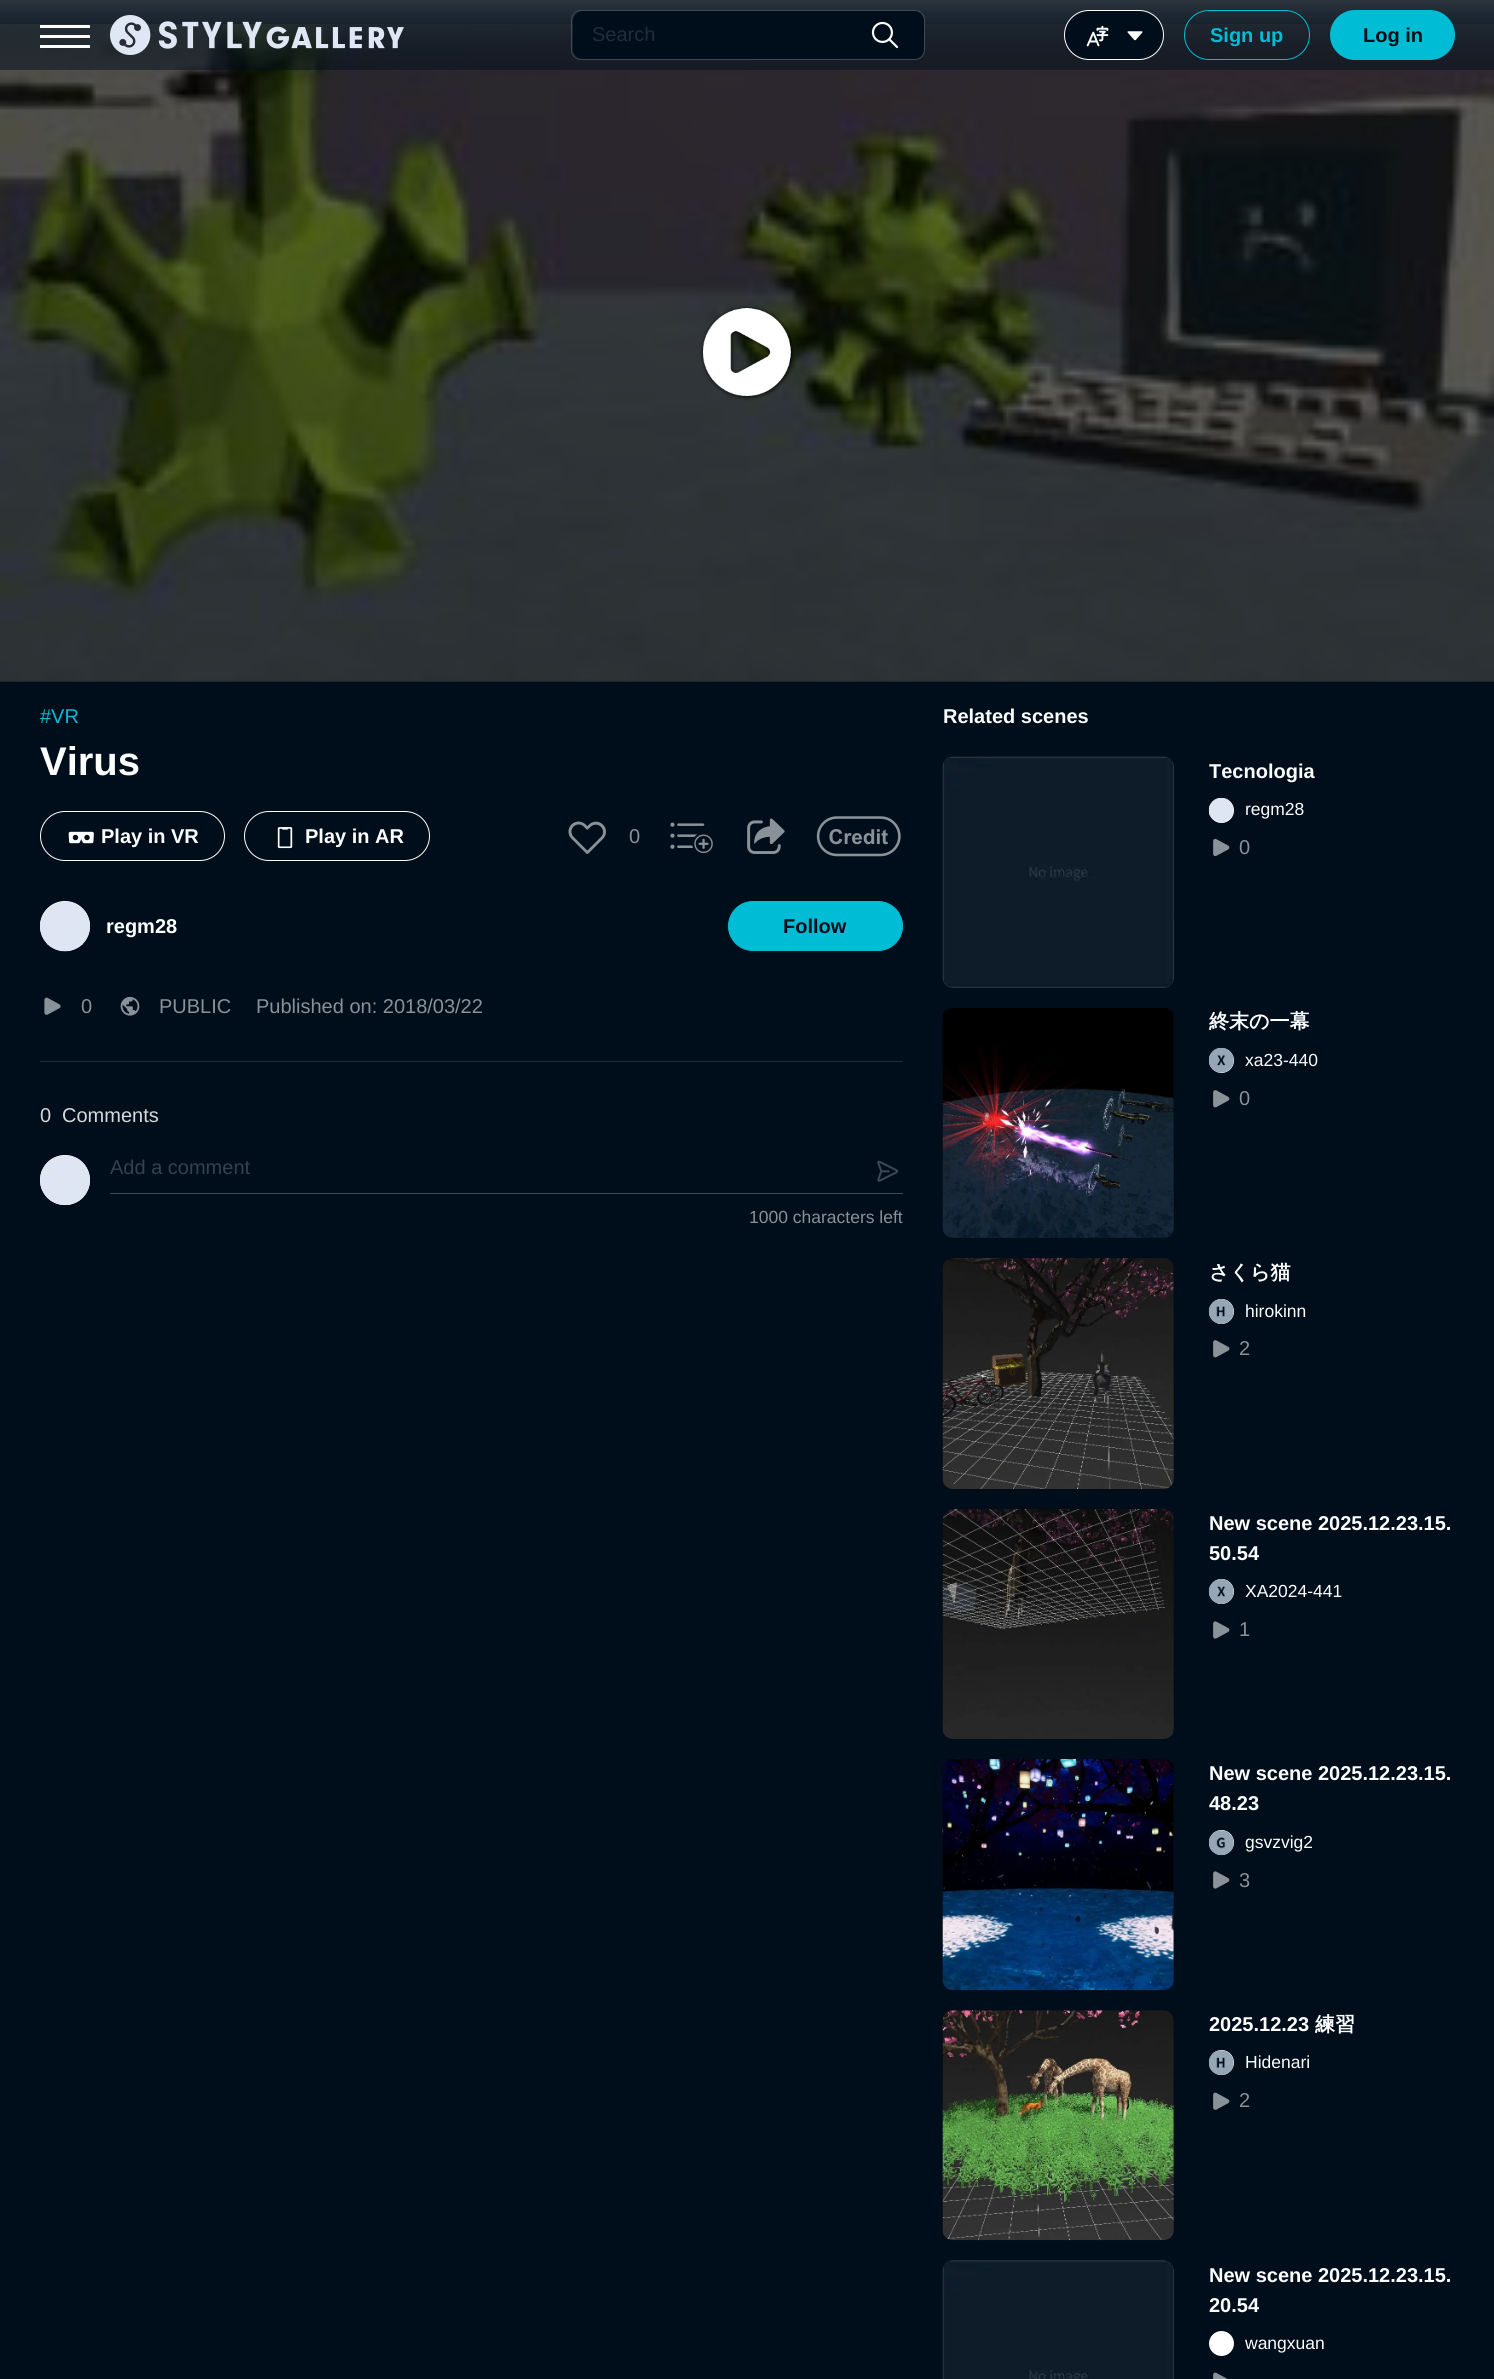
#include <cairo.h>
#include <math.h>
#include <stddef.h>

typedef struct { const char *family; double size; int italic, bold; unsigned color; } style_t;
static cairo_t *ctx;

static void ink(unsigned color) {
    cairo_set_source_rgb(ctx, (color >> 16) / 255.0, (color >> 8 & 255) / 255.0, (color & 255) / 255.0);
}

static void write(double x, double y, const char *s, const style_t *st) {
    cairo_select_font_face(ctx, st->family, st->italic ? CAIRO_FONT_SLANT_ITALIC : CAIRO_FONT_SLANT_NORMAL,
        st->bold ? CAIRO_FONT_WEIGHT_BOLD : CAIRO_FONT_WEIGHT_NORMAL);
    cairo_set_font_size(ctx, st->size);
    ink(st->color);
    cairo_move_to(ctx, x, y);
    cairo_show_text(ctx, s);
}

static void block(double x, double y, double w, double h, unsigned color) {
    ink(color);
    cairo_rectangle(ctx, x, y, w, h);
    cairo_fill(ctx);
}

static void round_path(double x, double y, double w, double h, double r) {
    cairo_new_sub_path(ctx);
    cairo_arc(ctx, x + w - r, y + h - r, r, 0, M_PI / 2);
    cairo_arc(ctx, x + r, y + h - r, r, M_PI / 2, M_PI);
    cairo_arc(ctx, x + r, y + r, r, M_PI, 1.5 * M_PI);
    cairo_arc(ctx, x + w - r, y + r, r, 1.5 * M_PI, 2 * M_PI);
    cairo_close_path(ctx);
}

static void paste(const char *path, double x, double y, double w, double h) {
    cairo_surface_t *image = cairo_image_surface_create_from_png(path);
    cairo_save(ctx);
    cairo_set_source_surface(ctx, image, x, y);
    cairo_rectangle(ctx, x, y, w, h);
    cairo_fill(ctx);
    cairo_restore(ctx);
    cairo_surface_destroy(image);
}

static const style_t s1 = {"Liberation Sans", 20, 0, 0, 0x212d3a};
static const style_t s2 = {"Liberation Sans", 20, 0, 1, 0x00bcd4};
static const style_t s3 = {"Liberation Sans", 20, 0, 1, 0x000d1a};
static const style_t s4 = {"Liberation Sans", 20, 0, 0, 0x00bcd4};
static const style_t s5 = {"Liberation Sans", 40, 0, 1, 0xfcfeff};
static const style_t s6 = {"Liberation Sans", 20, 0, 1, 0xfcfeff};
static const style_t s7 = {"Liberation Sans", 20, 0, 0, 0x899199};
static const style_t s8 = {"Liberation Sans", 20, 0, 0, 0xd6dadd};
static const style_t s9 = {"Liberation Sans", 20, 0, 0, 0x35414c};
static const style_t s10 = {"Liberation Sans", 17.5, 0, 0, 0x899199};
static const style_t s11 = {"Liberation Sans", 17.5, 0, 0, 0xfcfeff};
static const style_t s12 = {"WenQuanYi Zen Hei", 20, 0, 1, 0xfcfeff};

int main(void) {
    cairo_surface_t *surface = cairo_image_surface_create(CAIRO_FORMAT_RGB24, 1494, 2379);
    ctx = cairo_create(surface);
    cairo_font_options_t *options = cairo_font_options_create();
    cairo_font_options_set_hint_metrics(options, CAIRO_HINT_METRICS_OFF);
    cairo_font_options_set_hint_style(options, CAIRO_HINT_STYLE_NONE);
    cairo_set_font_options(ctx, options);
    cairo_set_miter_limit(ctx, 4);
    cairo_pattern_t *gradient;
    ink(0x000d1a);
    cairo_paint(ctx);
    paste("pic5.png", 0, 24, 1494, 658);
    gradient = cairo_pattern_create_linear(748, 0, 748, 70);
    cairo_pattern_add_color_stop_rgba(gradient, 0, 0.169, 0.204, 0.239, 1);
    cairo_pattern_add_color_stop_rgba(gradient, 1, 0, 0.051, 0.102, 0.5);
    cairo_set_source(ctx, gradient);
    cairo_pattern_destroy(gradient);
    cairo_rectangle(ctx, 0, 0, 1494, 70);
    cairo_fill(ctx);
    block(40, 25, 50, 3, 0xffffff);
    block(40, 35, 50, 3, 0xffffff);
    block(40, 45, 50, 3, 0xffffff);
    paste("pic1.png", 110, 15, 294, 40);
    round_path(571.5, 10.5, 353, 49, 9.5);
    ink(0x3d4955);
    cairo_set_line_width(ctx, 1);
    cairo_stroke(ctx);
    cairo_save(ctx);
    round_path(573, 11, 351, 48, 9);
    cairo_clip(ctx);
    ink(0x000d1a);
    cairo_new_path(ctx);
    cairo_move_to(ctx, 583, 11);
    cairo_line_to(ctx, 846, 11);
    cairo_line_to(ctx, 846, 59);
    cairo_line_to(ctx, 583, 59);
    cairo_curve_to(ctx, 577.5, 59, 573, 54.5, 573, 49);
    cairo_line_to(ctx, 573, 21);
    cairo_curve_to(ctx, 573, 15.5, 577.5, 11, 583, 11);
    cairo_close_path(ctx);
    cairo_fill(ctx);
    cairo_restore(ctx);
    write(592, 41, "Search", &s1);
    cairo_save(ctx);
    round_path(573, 11, 351, 48, 9);
    cairo_clip(ctx);
    ink(0x000d1a);
    cairo_new_path(ctx);
    cairo_move_to(ctx, 846, 11);
    cairo_line_to(ctx, 914, 11);
    cairo_curve_to(ctx, 919.5, 11, 924, 15.5, 924, 21);
    cairo_line_to(ctx, 924, 49);
    cairo_curve_to(ctx, 924, 54.5, 919.5, 59, 914, 59);
    cairo_line_to(ctx, 846, 59);
    cairo_close_path(ctx);
    cairo_fill(ctx);
    cairo_restore(ctx);
    paste("pic2.png", 871, 21, 28, 28);
    ink(0x000d1a);
    round_path(1064.5, 10.5, 99, 49, 24.5);
    cairo_fill_preserve(ctx);
    ink(0xfcfeff);
    cairo_stroke(ctx);
    paste("pic3.png", 1086, 25, 23, 22);
    paste("pic4.png", 1127, 31, 16, 10);
    round_path(1184.5, 10.5, 125, 49, 24.5);
    ink(0x00bcd4);
    cairo_stroke(ctx);
    write(1210, 42, "Sign up", &s2);
    round_path(1330, 10, 125, 50, 25);
    cairo_fill(ctx);
    write(1363, 42, "Log in", &s3);
    write(40, 723, "#VR", &s4);
    write(40, 775, "Virus", &s5);
    round_path(40.5, 811.5, 184, 49, 24.5);
    cairo_stroke(ctx);
    paste("pic6.png", 68, 831, 26, 13);
    write(101, 843, "Play in VR", &s6);
    round_path(244.5, 811.5, 185, 49, 24.5);
    cairo_stroke(ctx);
    paste("pic7.png", 277, 827, 16, 22);
    write(305, 843, "Play in AR", &s6);
    paste("pic8.png", 568, 821, 38, 33);
    write(629, 843, "0", &s7);
    paste("pic9.png", 670, 822, 43, 32);
    paste("pic10.png", 747, 818, 38, 36);
    paste("pic11.png", 816, 816, 85, 41);
    ink(0xffffff);
    cairo_arc(ctx, 65, 926, 25, 0, 2 * M_PI);
    cairo_fill(ctx);
    paste("pic12.png", 40, 901, 50, 51);
    write(106, 933, "regm28", &s6);
    ink(0x00bcd4);
    round_path(728.5, 901.5, 174, 49, 24.5);
    cairo_fill_preserve(ctx);
    cairo_stroke(ctx);
    write(783, 933, "Follow", &s3);
    paste("pic13.png", 44, 997, 17, 18);
    write(81, 1013, "0", &s7);
    paste("pic14.png", 120, 996, 20, 20);
    write(159, 1013, "PUBLIC", &s7);
    write(256, 1013, "Published on: 2018/03/22", &s7);
    block(40, 1061, 863, 1, 0x1f2b38);
    write(40, 1122, "0", &s8);
    write(62, 1122, "Comments", &s8);
    ink(0xffffff);
    cairo_new_path(ctx);
    cairo_arc(ctx, 65, 1180, 25, 0, 2 * M_PI);
    cairo_fill(ctx);
    paste("pic15.png", 40, 1155, 50, 51);
    block(110, 1193, 793, 1, 0x3d4955);
    write(110, 1174, "Add a comment", &s9);
    paste("pic16.png", 877, 1160, 22, 22);
    write(749, 1223, "1000 characters left", &s10);
    write(943, 723, "Related scenes", &s6);
    gradient = cairo_pattern_create_linear(1058, 988, 1058, 756);
    cairo_pattern_add_color_stop_rgba(gradient, 0, 0.059, 0.11, 0.161, 1);
    cairo_pattern_add_color_stop_rgba(gradient, 1, 0, 0.051, 0.102, 1);
    cairo_set_source(ctx, gradient);
    cairo_pattern_destroy(gradient);
    round_path(943, 756, 231, 232, 10);
    cairo_fill(ctx);
    paste("pic17.png", 942, 756, 232, 232);
    write(1209, 778, "Tecnologia", &s6);
    ink(0xffffff);
    cairo_new_path(ctx);
    cairo_arc(ctx, 1221.5, 810.5, 12.5, 0, 2 * M_PI);
    cairo_fill(ctx);
    paste("pic18.png", 1208, 797, 26, 26);
    write(1245, 815, "regm28", &s11);
    paste("pic19.png", 1213, 838, 17, 19);
    write(1239, 854, "0", &s7);
    gradient = cairo_pattern_create_linear(1058, 1238, 1058, 1008);
    cairo_pattern_add_color_stop_rgba(gradient, 0, 0.059, 0.11, 0.161, 1);
    cairo_pattern_add_color_stop_rgba(gradient, 1, 0, 0.051, 0.102, 1);
    cairo_set_source(ctx, gradient);
    cairo_pattern_destroy(gradient);
    round_path(943, 1008, 231, 230, 10);
    cairo_fill(ctx);
    paste("pic20.png", 942, 1008, 232, 230);
    write(1209, 1028, "終末の一幕", &s12);
    ink(0xffffff);
    cairo_new_path(ctx);
    cairo_arc(ctx, 1221.5, 1060.5, 12.5, 0, 2 * M_PI);
    cairo_fill(ctx);
    paste("pic21.png", 1208, 1047, 26, 26);
    write(1245, 1066, "xa23-440", &s11);
    paste("pic22.png", 1213, 1090, 17, 18);
    write(1239, 1105, "0", &s7);
    gradient = cairo_pattern_create_linear(1058, 1489, 1058, 1258);
    cairo_pattern_add_color_stop_rgba(gradient, 0, 0.059, 0.11, 0.161, 1);
    cairo_pattern_add_color_stop_rgba(gradient, 1, 0, 0.051, 0.102, 1);
    cairo_set_source(ctx, gradient);
    cairo_pattern_destroy(gradient);
    round_path(943, 1258, 231, 231, 10);
    cairo_fill(ctx);
    paste("pic23.png", 942, 1257, 232, 232);
    write(1209, 1279, "さくら猫", &s12);
    ink(0xffffff);
    cairo_new_path(ctx);
    cairo_arc(ctx, 1221.5, 1311.5, 12.5, 0, 2 * M_PI);
    cairo_fill(ctx);
    paste("pic24.png", 1208, 1299, 26, 25);
    write(1245, 1317, "hirokinn", &s11);
    paste("pic22.png", 1213, 1340, 17, 18);
    write(1239, 1355, "2", &s7);
    gradient = cairo_pattern_create_linear(1058, 1739, 1058, 1509);
    cairo_pattern_add_color_stop_rgba(gradient, 0, 0.059, 0.11, 0.161, 1);
    cairo_pattern_add_color_stop_rgba(gradient, 1, 0, 0.051, 0.102, 1);
    cairo_set_source(ctx, gradient);
    cairo_pattern_destroy(gradient);
    round_path(943, 1509, 231, 230, 10);
    cairo_fill(ctx);
    paste("pic25.png", 942, 1509, 232, 230);
    write(1209, 1530, "New scene 2025.12.23.15.", &s6);
    write(1209, 1560, "50.54", &s6);
    ink(0xffffff);
    cairo_new_path(ctx);
    cairo_arc(ctx, 1221.5, 1591.5, 12.5, 0, 2 * M_PI);
    cairo_fill(ctx);
    paste("pic26.png", 1208, 1579, 26, 25);
    write(1245, 1597, "XA2024-441", &s11);
    paste("pic27.png", 1213, 1621, 17, 18);
    write(1239, 1636, "1", &s7);
    gradient = cairo_pattern_create_linear(1058, 1990, 1058, 1759);
    cairo_pattern_add_color_stop_rgba(gradient, 0, 0.059, 0.11, 0.161, 1);
    cairo_pattern_add_color_stop_rgba(gradient, 1, 0, 0.051, 0.102, 1);
    cairo_set_source(ctx, gradient);
    cairo_pattern_destroy(gradient);
    round_path(943, 1759, 231, 231, 10);
    cairo_fill(ctx);
    paste("pic28.png", 942, 1759, 232, 232);
    write(1209, 1780, "New scene 2025.12.23.15.", &s6);
    write(1209, 1810, "48.23", &s6);
    ink(0xffffff);
    cairo_new_path(ctx);
    cairo_arc(ctx, 1221.5, 1842.5, 12.5, 0, 2 * M_PI);
    cairo_fill(ctx);
    paste("pic29.png", 1208, 1830, 26, 26);
    write(1245, 1848, "gsvzvig2", &s11);
    paste("pic27.png", 1213, 1871, 17, 18);
    write(1239, 1887, "3", &s7);
    gradient = cairo_pattern_create_linear(1058, 2240, 1058, 2010);
    cairo_pattern_add_color_stop_rgba(gradient, 0, 0.059, 0.11, 0.161, 1);
    cairo_pattern_add_color_stop_rgba(gradient, 1, 0, 0.051, 0.102, 1);
    cairo_set_source(ctx, gradient);
    cairo_pattern_destroy(gradient);
    round_path(943, 2010, 231, 230, 10);
    cairo_fill(ctx);
    paste("pic30.png", 942, 2010, 232, 231);
    write(1209, 2031, "2025.12.23", &s6);
    write(1315, 2031, "練習", &s12);
    ink(0xffffff);
    cairo_new_path(ctx);
    cairo_arc(ctx, 1221.5, 2062.5, 12.5, 0, 2 * M_PI);
    cairo_fill(ctx);
    paste("pic31.png", 1208, 2050, 26, 26);
    write(1245, 2068, "Hidenari", &s11);
    paste("pic32.png", 1213, 2092, 17, 18);
    write(1239, 2107, "2", &s7);
    gradient = cairo_pattern_create_linear(1058, 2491, 1058, 2260);
    cairo_pattern_add_color_stop_rgba(gradient, 0, 0.059, 0.11, 0.161, 1);
    cairo_pattern_add_color_stop_rgba(gradient, 1, 0, 0.051, 0.102, 1);
    cairo_set_source(ctx, gradient);
    cairo_pattern_destroy(gradient);
    round_path(943, 2260, 231, 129, 10);
    cairo_fill(ctx);
    paste("pic33.png", 942, 2260, 232, 119);
    write(1209, 2282, "New scene 2025.12.23.15.", &s6);
    write(1209, 2312, "20.54", &s6);
    ink(0xffffff);
    cairo_new_path(ctx);
    cairo_arc(ctx, 1221.5, 2343.5, 12.5, 0, 2 * M_PI);
    cairo_fill(ctx);
    write(1245, 2349, "wangxuan", &s11);
    paste("pic34.png", 1213, 2372, 15, 7);
    cairo_surface_write_to_png(surface, "screenshot.png");
    cairo_font_options_destroy(options);
    cairo_destroy(ctx);
    cairo_surface_destroy(surface);
    return 0;
}
